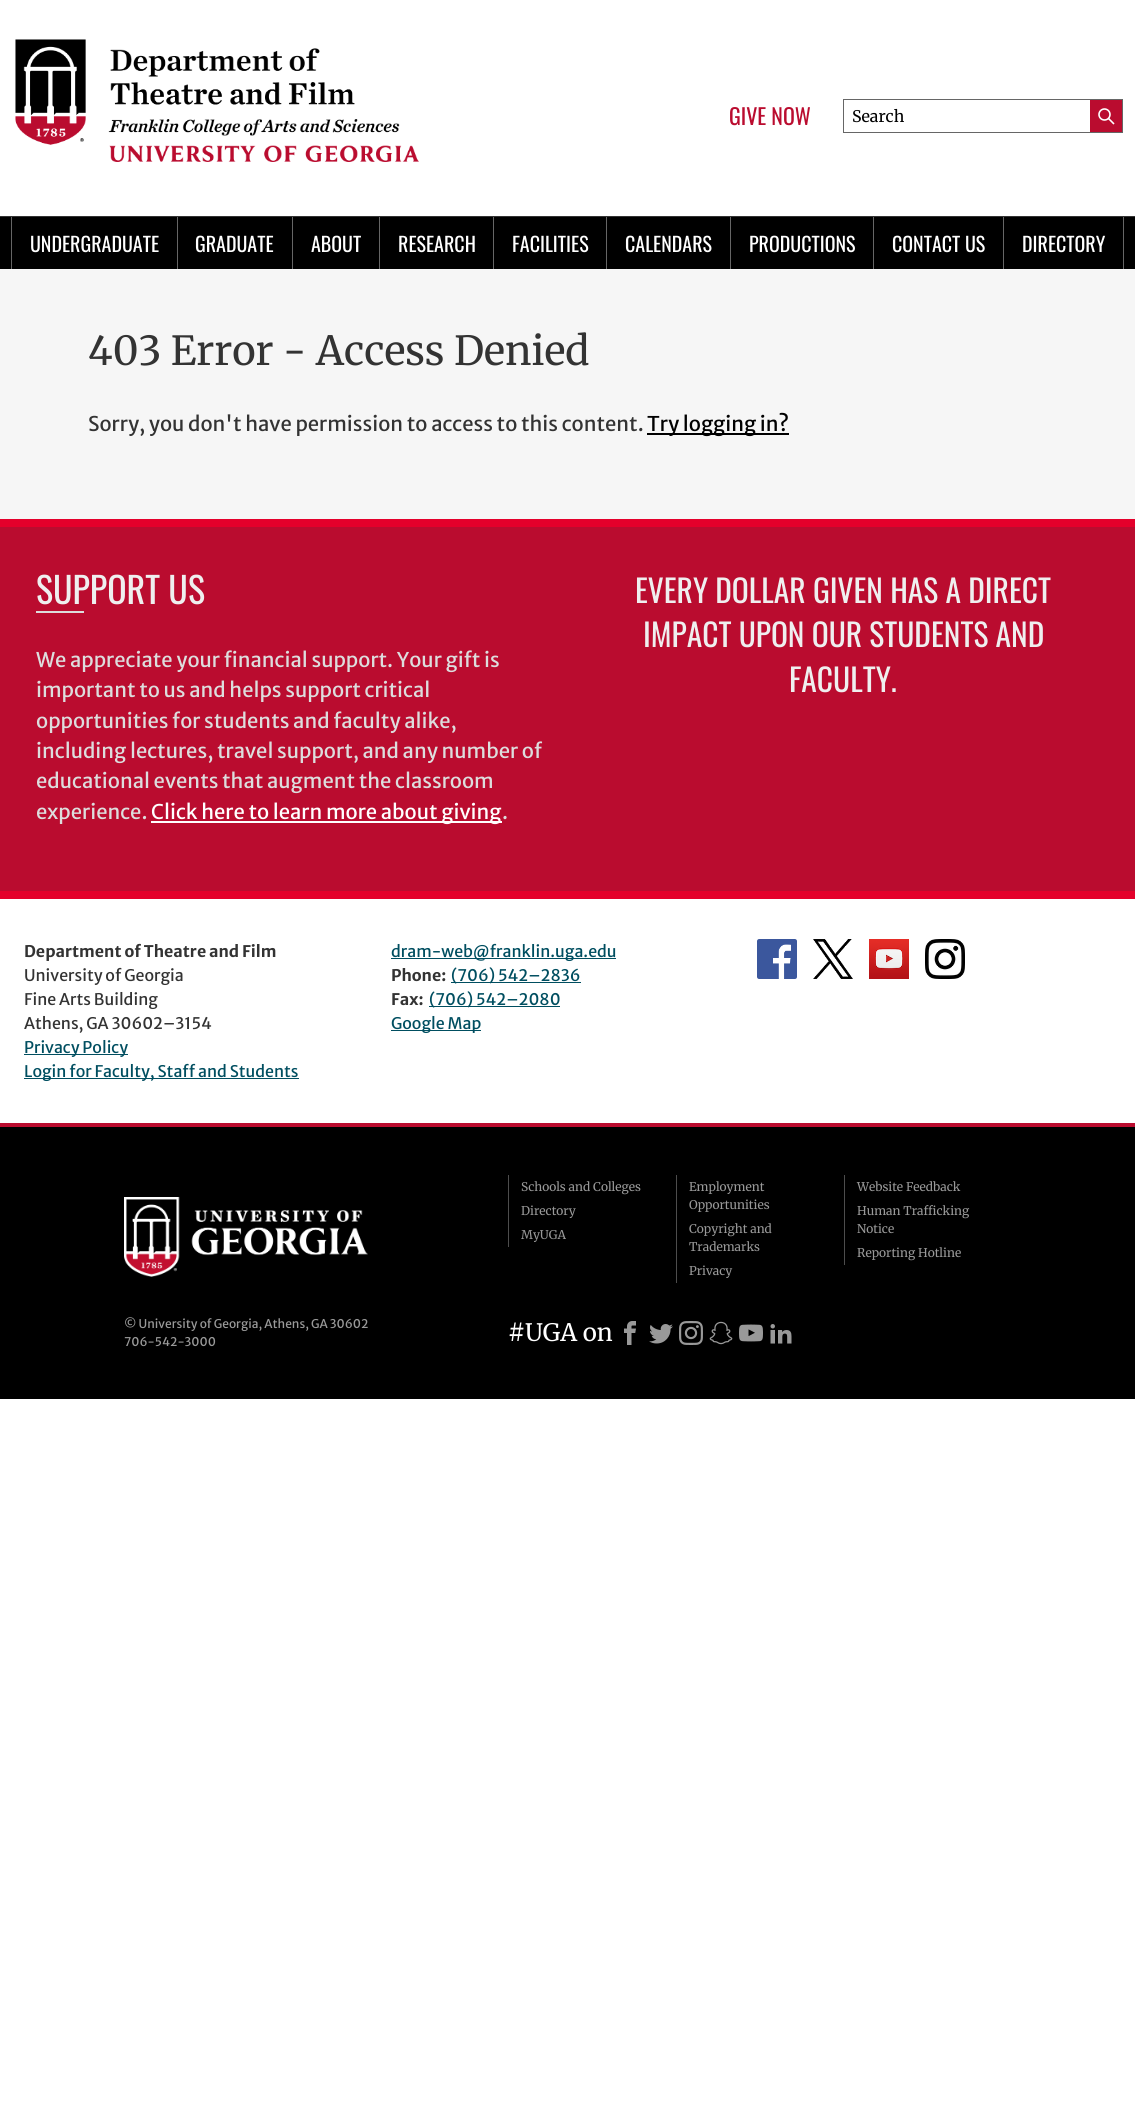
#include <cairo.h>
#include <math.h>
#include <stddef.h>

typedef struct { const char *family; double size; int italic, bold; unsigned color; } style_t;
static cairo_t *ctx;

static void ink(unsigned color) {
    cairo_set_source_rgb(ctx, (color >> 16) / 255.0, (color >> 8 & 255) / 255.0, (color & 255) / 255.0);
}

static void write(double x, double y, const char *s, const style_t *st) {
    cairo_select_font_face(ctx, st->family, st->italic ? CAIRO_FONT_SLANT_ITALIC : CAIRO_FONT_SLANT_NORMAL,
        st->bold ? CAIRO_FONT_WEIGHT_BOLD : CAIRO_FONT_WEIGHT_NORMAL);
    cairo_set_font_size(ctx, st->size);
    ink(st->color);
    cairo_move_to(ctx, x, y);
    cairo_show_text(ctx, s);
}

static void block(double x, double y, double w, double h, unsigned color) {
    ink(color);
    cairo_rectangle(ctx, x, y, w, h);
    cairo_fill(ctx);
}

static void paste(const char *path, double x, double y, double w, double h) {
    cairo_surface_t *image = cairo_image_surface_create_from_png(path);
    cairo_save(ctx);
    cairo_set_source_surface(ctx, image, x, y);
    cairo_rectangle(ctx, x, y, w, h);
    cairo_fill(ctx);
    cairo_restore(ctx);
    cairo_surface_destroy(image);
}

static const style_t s1 = {"Oswald", 22, 0, 0, 0xba0c2f};
static const style_t s2 = {"Merriweather Light", 16, 0, 0, 0x000000};
static const style_t s3 = {"Oswald", 20, 0, 0, 0xffffff};
static const style_t s4 = {"Merriweather Light", 40, 0, 0, 0x333333};
static const style_t s5 = {"Merriweather Sans", 20.25, 0, 0, 0x333333};
static const style_t s6 = {"Merriweather Sans", 20.25, 0, 0, 0x000000};
static const style_t s7 = {"Oswald", 36, 0, 0, 0xefefef};
static const style_t s8 = {"Merriweather Sans", 20.25, 0, 0, 0xdddddd};
static const style_t s9 = {"Merriweather Sans", 20.25, 0, 0, 0xffffff};
static const style_t s10 = {"Oswald", 31.5, 0, 0, 0xefefef};
static const style_t s11 = {"Merriweather Sans", 16, 0, 1, 0x333333};
static const style_t s12 = {"Merriweather Sans", 16, 0, 0, 0x333333};
static const style_t s13 = {"Merriweather Sans", 16, 0, 0, 0x004e60};
static const style_t s14 = {"Merriweather Light", 12, 0, 0, 0x999999};
static const style_t s15 = {"Merriweather Sans", 12, 0, 0, 0x999999};
static const style_t s16 = {"Merriweather Light", 24, 0, 0, 0xffffff};

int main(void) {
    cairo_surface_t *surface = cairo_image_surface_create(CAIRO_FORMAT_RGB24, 1135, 2102);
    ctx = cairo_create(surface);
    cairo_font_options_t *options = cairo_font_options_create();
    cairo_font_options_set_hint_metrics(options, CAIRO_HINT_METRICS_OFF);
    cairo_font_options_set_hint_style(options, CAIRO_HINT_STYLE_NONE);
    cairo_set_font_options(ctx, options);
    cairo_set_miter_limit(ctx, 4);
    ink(0xffffff);
    cairo_paint(ctx);
    paste("pic1.png", 15, 39, 404, 123);
    write(729, 125, "GIVE NOW", &s1);
    cairo_rectangle(ctx, 843.5, 99.5, 279, 33);
    ink(0x666666);
    cairo_set_line_width(ctx, 1);
    cairo_stroke(ctx);
    write(852, 122, "Search", &s2);
    block(1090, 100, 32, 32, 0xba0c2f);
    cairo_new_path(ctx);
    cairo_arc(ctx, 1104.5, 114.5, 5.5, 0, 2 * M_PI);
    ink(0xffffff);
    cairo_set_line_width(ctx, 1.6);
    cairo_stroke(ctx);
    cairo_new_path(ctx);
    cairo_move_to(ctx, 1108.5, 118.5);
    cairo_line_to(ctx, 1114, 124);
    cairo_stroke(ctx);
    block(0, 217, 1135, 52, 0x000000);
    block(0, 216, 1135, 1, 0x333333);
    block(11, 217, 1, 52, 0x666666);
    block(1123, 217, 1, 52, 0x666666);
    write(30, 252, "UNDERGRADUATE", &s3);
    block(177, 217, 1, 52, 0x666666);
    write(195, 252, "GRADUATE", &s3);
    block(292, 217, 1, 52, 0x666666);
    write(311, 252, "ABOUT", &s3);
    block(379, 217, 1, 52, 0x666666);
    write(398, 252, "RESEARCH", &s3);
    block(493, 217, 1, 52, 0x666666);
    write(512, 252, "FACILITIES", &s3);
    block(606, 217, 1, 52, 0x666666);
    write(625, 252, "CALENDARS", &s3);
    block(730, 217, 1, 52, 0x666666);
    write(749, 252, "PRODUCTIONS", &s3);
    block(873, 217, 1, 52, 0x666666);
    write(892, 252, "CONTACT US", &s3);
    block(1003, 217, 1, 52, 0x666666);
    write(1022, 252, "DIRECTORY", &s3);
    block(0, 269, 1135, 250, 0xf6f6f6);
    write(88, 365, "403 Error - Access Denied", &s4);
    write(88, 431, "Sorry, you don't have permission to access to this content.", &s5);
    block(647, 433, 142, 2, 0x000000);
    write(647, 431, "Try logging in?", &s6);
    block(0, 527, 1135, 364, 0xba0c2f);
    block(0, 519, 1135, 8, 0xe4002b);
    block(0, 891, 1135, 8, 0xe4002b);
    write(36, 604, "SUPPORT US", &s7);
    block(36, 611, 48, 2, 0xdddddd);
    write(36, 667, "We appreciate your financial support. Your gift is", &s8);
    write(36, 697, "important to us and helps support critical", &s8);
    write(36, 728, "opportunities for students and faculty alike,", &s8);
    write(36, 758, "including lectures, travel support, and any number of", &s8);
    write(36, 788, "educational events that augment the classroom", &s8);
    write(36, 819, "experience.", &s8);
    block(151, 821, 351, 2, 0xffffff);
    write(151, 819, "Click here to learn more about giving", &s9);
    write(502, 819, ".", &s8);
    write(635, 603, "EVERY DOLLAR GIVEN HAS A DIRECT", &s10);
    write(643, 647, "IMPACT UPON OUR STUDENTS AND", &s10);
    write(789, 692, "FACULTY.", &s10);
    write(24, 957, "Department of Theatre and Film", &s11);
    write(24, 981, "University of Georgia", &s12);
    write(24, 1005, "Fine Arts Building", &s12);
    write(24, 1029, "Athens, GA 30602–3154", &s12);
    block(24, 1054, 104, 1, 0x004e60);
    write(24, 1053, "Privacy Policy", &s13);
    block(24, 1078, 275, 1, 0x004e60);
    write(24, 1077, "Login for Faculty, Staff and Students", &s13);
    block(391, 958, 225, 1, 0x004e60);
    write(391, 957, "dram-web@franklin.uga.edu", &s13);
    write(391, 981, "Phone:", &s11);
    block(451, 982, 130, 1, 0x004e60);
    write(451, 981, "(706) 542–2836", &s13);
    write(391, 1005, "Fax:", &s11);
    block(429, 1006, 131, 1, 0x004e60);
    write(429, 1005, "(706) 542–2080", &s13);
    block(391, 1030, 90, 1, 0x004e60);
    write(391, 1029, "Google Map", &s13);
    paste("pic2.png", 757, 939, 40, 40);
    paste("pic3.png", 813, 939, 40, 40);
    paste("pic4.png", 869, 939, 40, 40);
    paste("pic5.png", 925, 939, 40, 40);
    block(0, 1127, 1135, 272, 0x000000);
    block(0, 1123, 1135, 4, 0xba0c2f);
    paste("pic6.png", 124, 1197, 244, 80);
    block(508, 1175, 1, 72, 0x4d4d4d);
    write(521, 1191, "Schools and Colleges", &s14);
    block(676, 1175, 1, 108, 0x4d4d4d);
    write(689, 1191, "Employment", &s14);
    write(689, 1209, "Opportunities", &s14);
    block(844, 1175, 1, 90, 0x4d4d4d);
    write(857, 1191, "Website Feedback", &s14);
    write(521, 1215, "Directory", &s14);
    write(857, 1215, "Human Trafficking", &s14);
    write(857, 1233, "Notice", &s14);
    write(521, 1239, "MyUGA", &s14);
    write(689, 1233, "Copyright and", &s14);
    write(689, 1251, "Trademarks", &s14);
    write(857, 1257, "Reporting Hotline", &s14);
    write(689, 1275, "Privacy", &s14);
    write(124, 1328, "© University of Georgia, Athens, GA 30602", &s15);
    write(124, 1346, "706-542-3000", &s15);
    write(508, 1341, "#UGA on", &s16);
    paste("pic7.png", 624, 1321, 12, 24);
    paste("pic8.png", 649, 1324, 24, 20);
    paste("pic9.png", 679, 1321, 24, 24);
    paste("pic10.png", 709, 1321, 24, 24);
    paste("pic11.png", 739, 1324, 24, 18);
    paste("pic12.png", 770, 1324, 22, 20);
    cairo_surface_write_to_png(surface, "screenshot.png");
    cairo_font_options_destroy(options);
    cairo_destroy(ctx);
    cairo_surface_destroy(surface);
    return 0;
}
